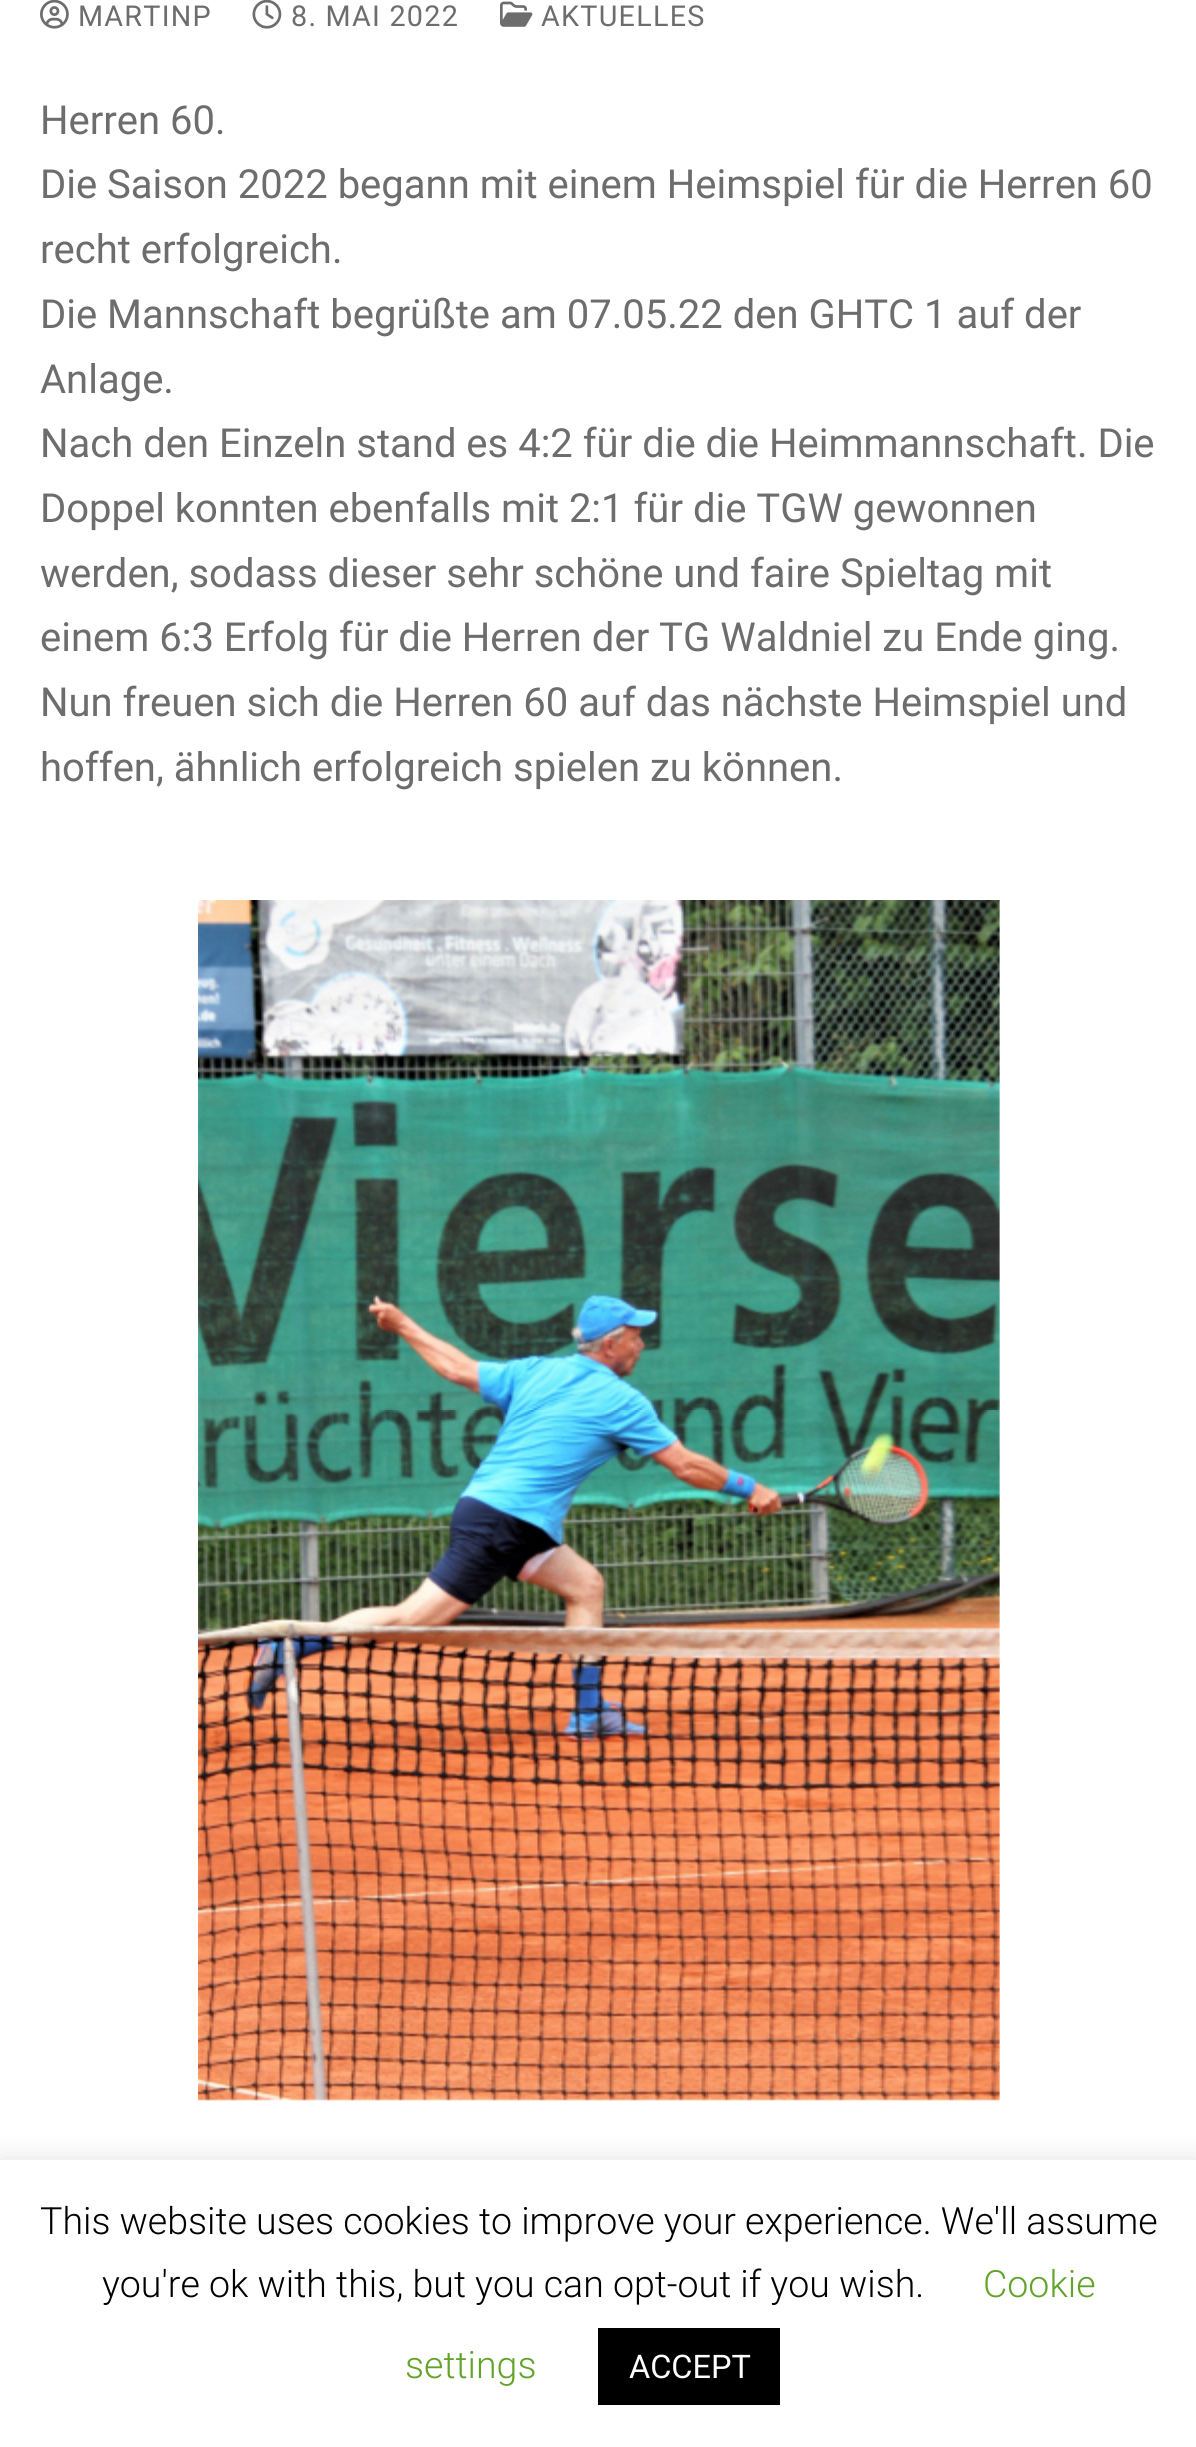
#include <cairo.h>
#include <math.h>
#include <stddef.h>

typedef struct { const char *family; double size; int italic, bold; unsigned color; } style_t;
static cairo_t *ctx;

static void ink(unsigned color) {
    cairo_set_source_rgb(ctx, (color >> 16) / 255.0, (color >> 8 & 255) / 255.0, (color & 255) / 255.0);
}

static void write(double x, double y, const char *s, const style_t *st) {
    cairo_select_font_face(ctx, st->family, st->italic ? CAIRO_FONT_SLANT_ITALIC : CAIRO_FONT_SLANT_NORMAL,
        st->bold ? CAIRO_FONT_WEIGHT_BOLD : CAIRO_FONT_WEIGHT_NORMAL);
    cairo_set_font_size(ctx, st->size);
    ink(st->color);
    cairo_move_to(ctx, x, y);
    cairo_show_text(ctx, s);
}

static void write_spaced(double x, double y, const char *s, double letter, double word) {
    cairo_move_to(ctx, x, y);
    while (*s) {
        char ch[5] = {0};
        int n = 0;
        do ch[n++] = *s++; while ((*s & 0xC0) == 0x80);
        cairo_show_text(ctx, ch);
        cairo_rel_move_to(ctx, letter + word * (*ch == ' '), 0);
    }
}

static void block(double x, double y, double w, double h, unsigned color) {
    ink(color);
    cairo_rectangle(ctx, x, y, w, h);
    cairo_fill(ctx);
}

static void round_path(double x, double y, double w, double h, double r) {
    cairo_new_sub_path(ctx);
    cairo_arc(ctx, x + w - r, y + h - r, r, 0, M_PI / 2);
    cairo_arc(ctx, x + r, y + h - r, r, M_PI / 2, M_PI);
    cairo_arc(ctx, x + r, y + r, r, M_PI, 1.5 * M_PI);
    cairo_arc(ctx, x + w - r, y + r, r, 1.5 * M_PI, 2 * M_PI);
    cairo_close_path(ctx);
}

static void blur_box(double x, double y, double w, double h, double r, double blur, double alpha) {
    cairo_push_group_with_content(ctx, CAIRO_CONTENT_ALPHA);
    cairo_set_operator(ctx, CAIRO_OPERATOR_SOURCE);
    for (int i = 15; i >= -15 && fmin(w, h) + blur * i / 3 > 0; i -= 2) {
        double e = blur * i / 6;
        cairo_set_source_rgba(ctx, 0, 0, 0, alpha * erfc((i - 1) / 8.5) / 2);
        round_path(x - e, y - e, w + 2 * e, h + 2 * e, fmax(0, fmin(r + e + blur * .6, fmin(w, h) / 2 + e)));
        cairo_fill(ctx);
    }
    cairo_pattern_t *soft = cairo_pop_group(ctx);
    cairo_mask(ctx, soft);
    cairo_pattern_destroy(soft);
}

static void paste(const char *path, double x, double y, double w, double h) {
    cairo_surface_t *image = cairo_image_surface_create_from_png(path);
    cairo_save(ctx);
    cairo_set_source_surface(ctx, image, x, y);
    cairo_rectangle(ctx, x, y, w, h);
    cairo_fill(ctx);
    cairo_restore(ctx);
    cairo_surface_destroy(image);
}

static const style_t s1 = {"Roboto", 40, 0, 0, 0x6d6d6d};
static const style_t s2 = {"Roboto Light", 37.5, 0, 0, 0x000000};
static const style_t s3 = {"Roboto Light", 37.5, 0, 0, 0x62a329};
static const style_t s4 = {"Roboto", 32.5, 0, 0, 0xffffff};

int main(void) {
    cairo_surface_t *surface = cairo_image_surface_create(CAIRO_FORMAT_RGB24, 1196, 2447);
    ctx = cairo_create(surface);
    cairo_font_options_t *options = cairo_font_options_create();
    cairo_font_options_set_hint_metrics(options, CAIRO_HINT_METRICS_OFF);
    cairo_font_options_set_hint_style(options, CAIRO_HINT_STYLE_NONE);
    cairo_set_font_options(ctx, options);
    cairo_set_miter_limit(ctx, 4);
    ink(0xffffff);
    cairo_paint(ctx);
    paste("pic1.png", 40, 0, 29, 29);
    cairo_select_font_face(ctx, "Roboto", CAIRO_FONT_SLANT_NORMAL, CAIRO_FONT_WEIGHT_NORMAL);
    cairo_set_font_size(ctx, 28.75);
    ink(0x6d6d6d);
    write_spaced(78, 26, "MARTINP", 1.25, 0);
    paste("pic2.png", 252, 0, 30, 29);
    write_spaced(291, 26, "8. MAI 2022", 1.25, 0);
    paste("pic3.png", 500, 1, 33, 26);
    write_spaced(541, 26, "AKTUELLES", 1.25, 0);
    write(40, 134, "Herren 60.", &s1);
    write(40, 198, "Die Saison 2022 begann mit einem Heimspiel für die Herren 60", &s1);
    write(40, 263, "recht erfolgreich.", &s1);
    write(40, 328, "Die Mannschaft begrüßte am 07.05.22 den GHTC 1 auf der", &s1);
    write(40, 393, "Anlage.", &s1);
    write(40, 457, "Nach den Einzeln stand es 4:2 für die die Heimmannschaft. Die", &s1);
    write(40, 522, "Doppel konnten ebenfalls mit 2:1 für die TGW gewonnen", &s1);
    write(40, 587, "werden, sodass dieser sehr schöne und faire Spieltag mit", &s1);
    write(40, 651, "einem 6:3 Erfolg für die Herren der TG Waldniel zu Ende ging.", &s1);
    write(40, 716, "Nun freuen sich die Herren 60 auf das nächste Heimspiel und", &s1);
    write(40, 781, "hoffen, ähnlich erfolgreich spielen zu können.", &s1);
    paste("pic4.png", 198, 900, 802, 1201);
    ink(0xacabab);
    blur_box(0, 2158, 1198, 287, 0, 12.5, 0.3);
    block(0, 2160, 1196, 287, 0xffffff);
    write(40, 2234, "This website uses cookies to improve your experience. We'll assume", &s2);
    write(102, 2297, "you're ok with this, but you can opt-out if you wish.", &s2);
    write(983, 2297, "Cookie", &s3);
    write(405, 2378, "settings", &s3);
    block(598, 2328, 182, 77, 0x000000);
    write(629, 2378, "ACCEPT", &s4);
    cairo_surface_write_to_png(surface, "screenshot.png");
    cairo_font_options_destroy(options);
    cairo_destroy(ctx);
    cairo_surface_destroy(surface);
    return 0;
}
